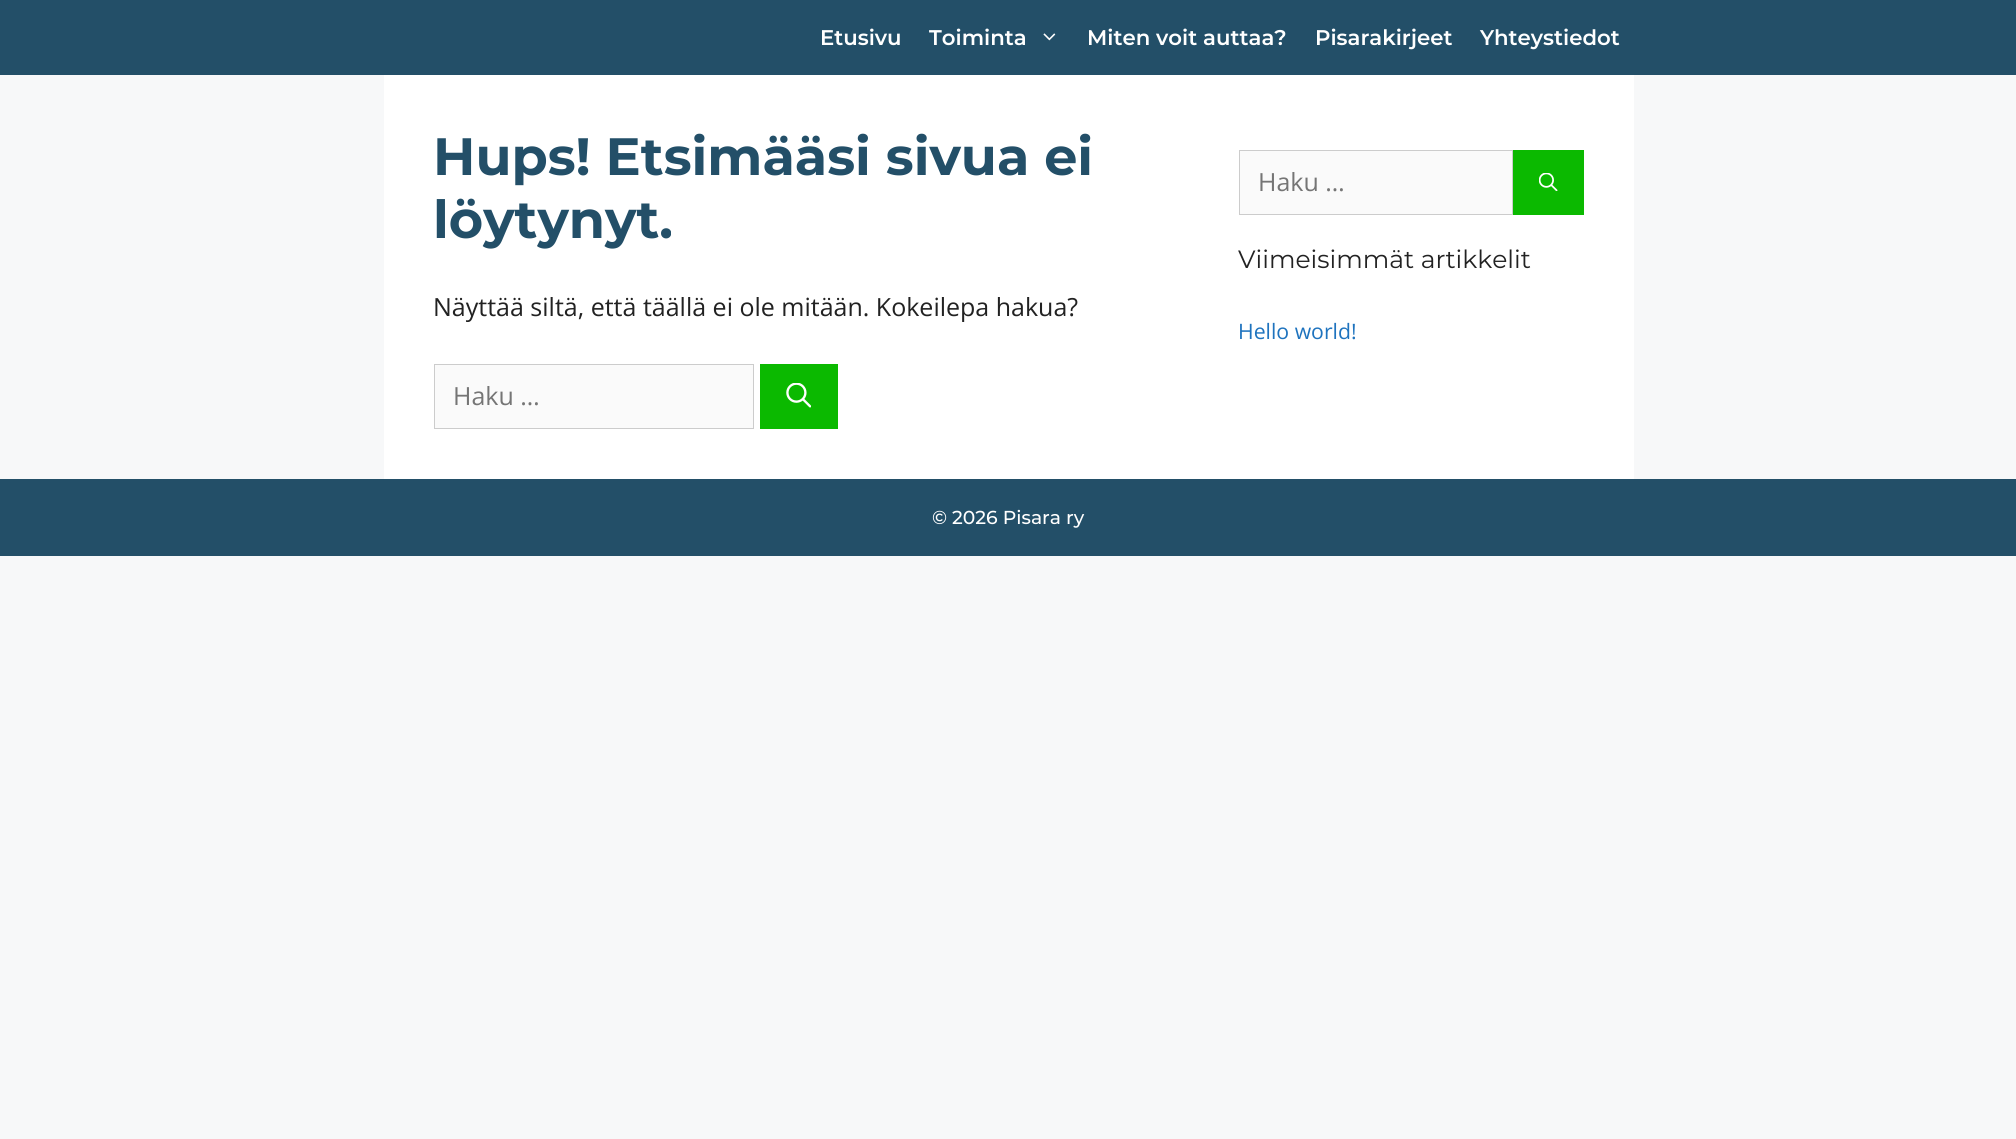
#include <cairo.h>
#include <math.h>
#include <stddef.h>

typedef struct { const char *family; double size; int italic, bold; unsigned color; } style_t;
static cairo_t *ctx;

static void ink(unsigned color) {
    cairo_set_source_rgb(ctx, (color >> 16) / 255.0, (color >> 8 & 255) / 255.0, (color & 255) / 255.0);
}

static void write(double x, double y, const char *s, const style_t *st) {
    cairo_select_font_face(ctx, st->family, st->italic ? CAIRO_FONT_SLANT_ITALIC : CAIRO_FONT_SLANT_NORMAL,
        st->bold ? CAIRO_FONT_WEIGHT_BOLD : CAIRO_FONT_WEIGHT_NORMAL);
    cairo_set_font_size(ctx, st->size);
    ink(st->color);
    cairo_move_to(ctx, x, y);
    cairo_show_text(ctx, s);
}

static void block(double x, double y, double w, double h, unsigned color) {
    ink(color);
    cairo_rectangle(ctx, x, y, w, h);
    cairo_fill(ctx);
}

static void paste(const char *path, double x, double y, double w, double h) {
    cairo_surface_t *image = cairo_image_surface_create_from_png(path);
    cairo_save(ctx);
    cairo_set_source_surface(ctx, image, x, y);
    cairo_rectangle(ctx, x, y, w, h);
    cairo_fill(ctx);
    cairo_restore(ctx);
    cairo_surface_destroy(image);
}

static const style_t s1 = {"Montserrat SemiBold", 21.25, 0, 0, 0xffffff};
static const style_t s2 = {"Montserrat", 52.5, 0, 1, 0x234f68};
static const style_t s3 = {"Open Sans", 25, 0, 0, 0x222222};
static const style_t s4 = {"Open Sans", 25, 0, 0, 0x757575};
static const style_t s5 = {"Montserrat", 25, 0, 0, 0x222222};
static const style_t s6 = {"Open Sans", 21.25, 0, 0, 0x1e73be};
static const style_t s7 = {"Montserrat Medium", 18.75, 0, 0, 0xffffff};

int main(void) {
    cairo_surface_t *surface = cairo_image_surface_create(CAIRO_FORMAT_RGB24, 2016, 1139);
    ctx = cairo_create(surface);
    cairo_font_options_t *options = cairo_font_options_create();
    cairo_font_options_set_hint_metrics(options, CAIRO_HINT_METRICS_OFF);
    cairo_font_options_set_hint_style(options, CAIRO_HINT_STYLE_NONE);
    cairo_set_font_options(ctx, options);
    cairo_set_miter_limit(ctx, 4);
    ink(0xf7f8f9);
    cairo_paint(ctx);
    block(0, 0, 2016, 75, 0x234f68);
    write(820, 45, "Etusivu", &s1);
    write(929, 45, "Toiminta", &s1);
    paste("pic1.png", 1043, 33, 13, 8);
    write(1087, 45, "Miten voit auttaa?", &s1);
    write(1315, 45, "Pisarakirjeet", &s1);
    write(1480, 45, "Yhteystiedot", &s1);
    block(384, 75, 1250, 404, 0xffffff);
    write(433, 175, "Hups! Etsimääsi sivua ei", &s2);
    write(433, 238, "löytynyt.", &s2);
    write(433, 316, "Näyttää siltä, että täällä ei ole mitään. Kokeilepa hakua?", &s3);
    ink(0xfafafa);
    cairo_rectangle(ctx, 434.5, 364.5, 319, 64);
    cairo_fill_preserve(ctx);
    ink(0xcccccc);
    cairo_set_line_width(ctx, 1);
    cairo_stroke(ctx);
    write(453, 405, "Haku …", &s4);
    block(760, 364, 78, 65, 0x0bb900);
    paste("pic2.png", 786, 383, 25, 25);
    ink(0xfafafa);
    cairo_rectangle(ctx, 1239.5, 150.5, 273, 64);
    cairo_fill_preserve(ctx);
    ink(0xcccccc);
    cairo_stroke(ctx);
    write(1258, 191, "Haku …", &s4);
    block(1513, 150, 71, 65, 0x0bb900);
    paste("pic3.png", 1539, 173, 19, 18);
    write(1238, 268, "Viimeisimmät artikkelit", &s5);
    write(1238, 339, "Hello world!", &s6);
    block(0, 479, 2016, 77, 0x234f68);
    write(932, 524, "© 2026 Pisara ry", &s7);
    cairo_surface_write_to_png(surface, "screenshot.png");
    cairo_font_options_destroy(options);
    cairo_destroy(ctx);
    cairo_surface_destroy(surface);
    return 0;
}
